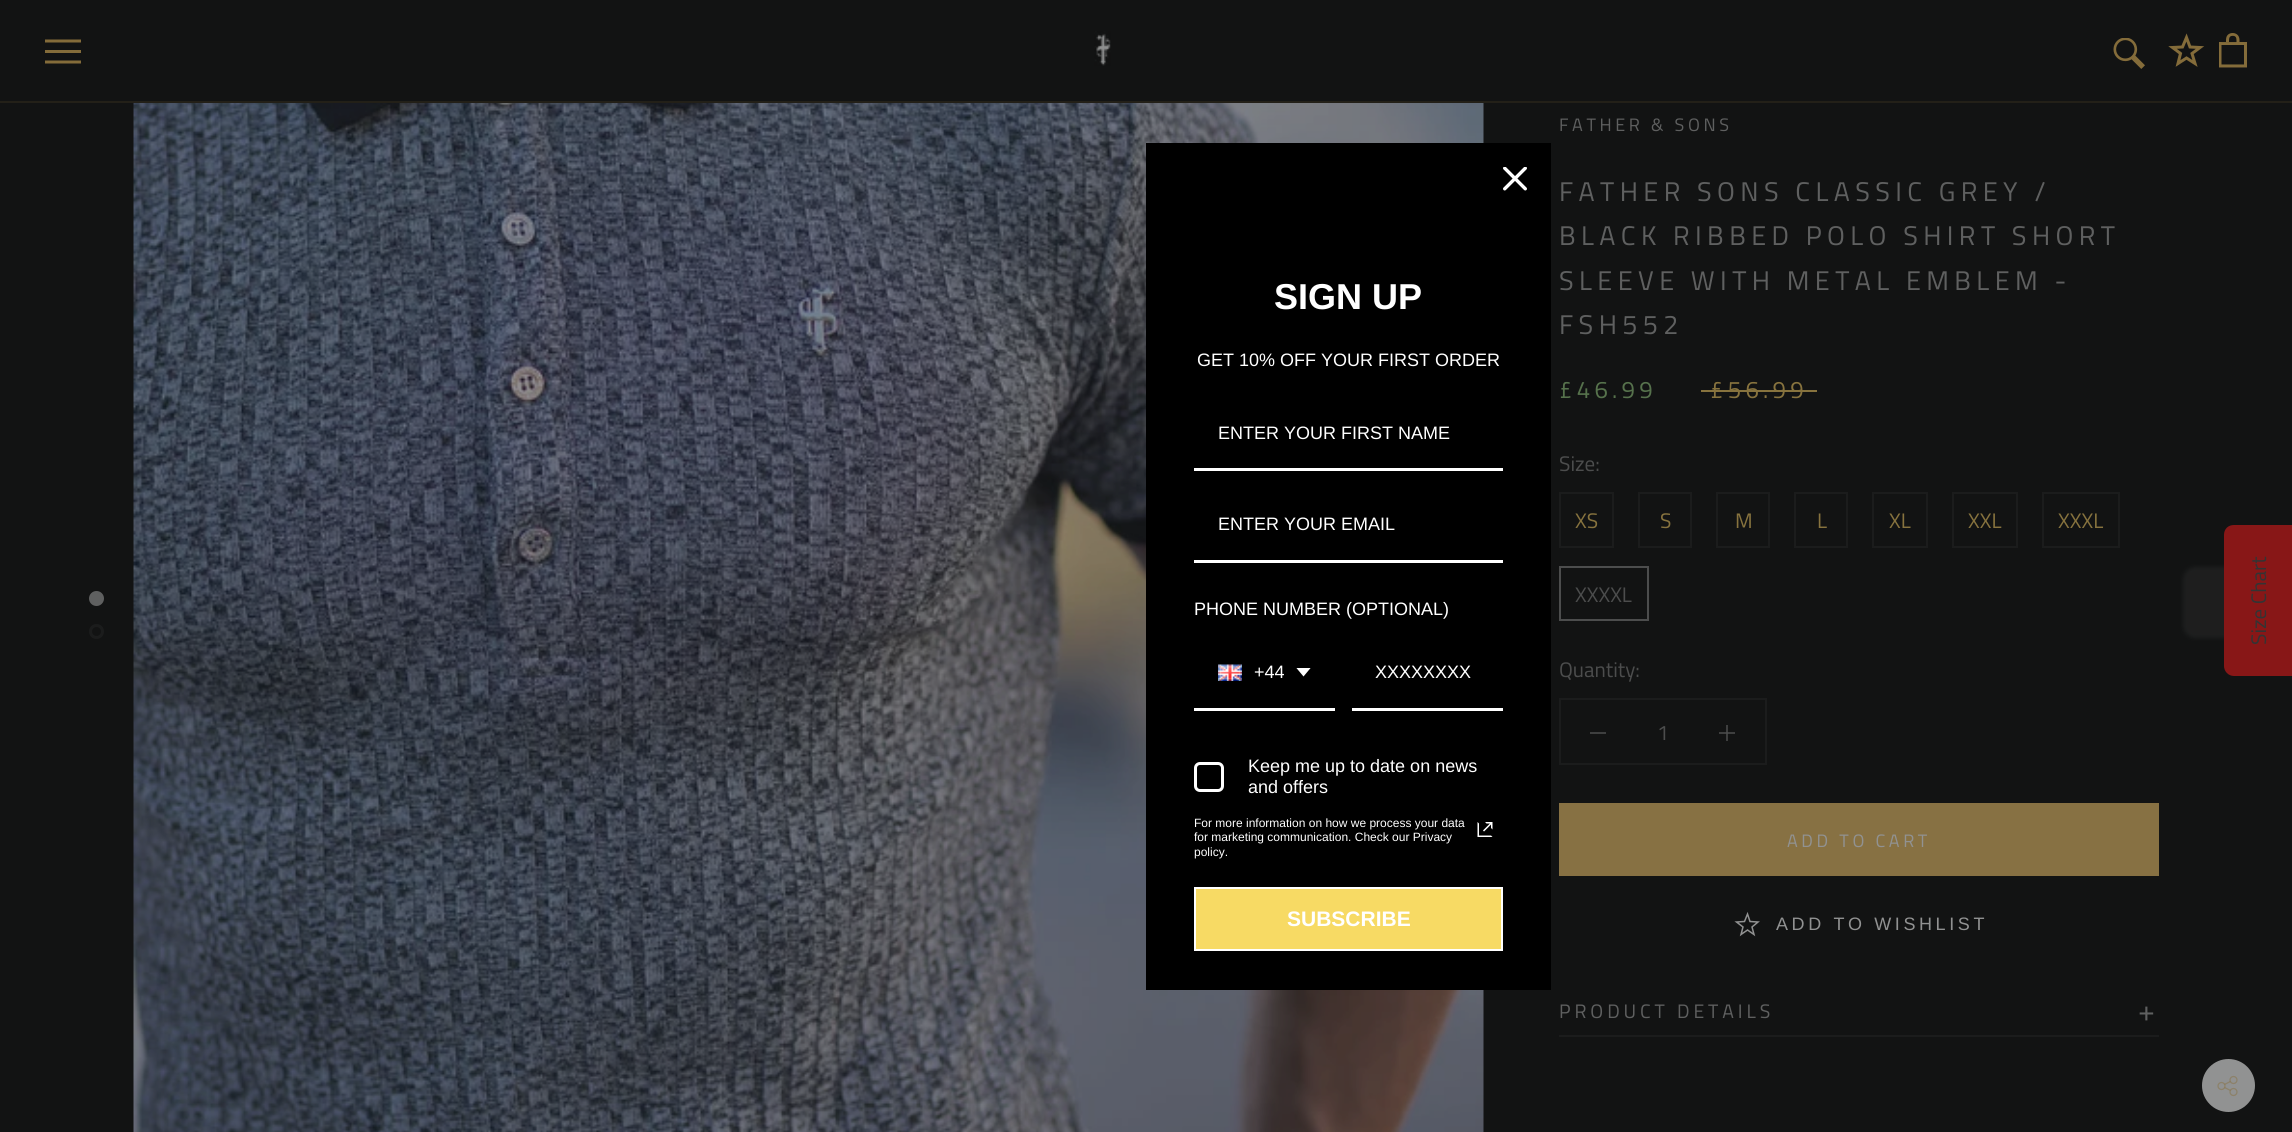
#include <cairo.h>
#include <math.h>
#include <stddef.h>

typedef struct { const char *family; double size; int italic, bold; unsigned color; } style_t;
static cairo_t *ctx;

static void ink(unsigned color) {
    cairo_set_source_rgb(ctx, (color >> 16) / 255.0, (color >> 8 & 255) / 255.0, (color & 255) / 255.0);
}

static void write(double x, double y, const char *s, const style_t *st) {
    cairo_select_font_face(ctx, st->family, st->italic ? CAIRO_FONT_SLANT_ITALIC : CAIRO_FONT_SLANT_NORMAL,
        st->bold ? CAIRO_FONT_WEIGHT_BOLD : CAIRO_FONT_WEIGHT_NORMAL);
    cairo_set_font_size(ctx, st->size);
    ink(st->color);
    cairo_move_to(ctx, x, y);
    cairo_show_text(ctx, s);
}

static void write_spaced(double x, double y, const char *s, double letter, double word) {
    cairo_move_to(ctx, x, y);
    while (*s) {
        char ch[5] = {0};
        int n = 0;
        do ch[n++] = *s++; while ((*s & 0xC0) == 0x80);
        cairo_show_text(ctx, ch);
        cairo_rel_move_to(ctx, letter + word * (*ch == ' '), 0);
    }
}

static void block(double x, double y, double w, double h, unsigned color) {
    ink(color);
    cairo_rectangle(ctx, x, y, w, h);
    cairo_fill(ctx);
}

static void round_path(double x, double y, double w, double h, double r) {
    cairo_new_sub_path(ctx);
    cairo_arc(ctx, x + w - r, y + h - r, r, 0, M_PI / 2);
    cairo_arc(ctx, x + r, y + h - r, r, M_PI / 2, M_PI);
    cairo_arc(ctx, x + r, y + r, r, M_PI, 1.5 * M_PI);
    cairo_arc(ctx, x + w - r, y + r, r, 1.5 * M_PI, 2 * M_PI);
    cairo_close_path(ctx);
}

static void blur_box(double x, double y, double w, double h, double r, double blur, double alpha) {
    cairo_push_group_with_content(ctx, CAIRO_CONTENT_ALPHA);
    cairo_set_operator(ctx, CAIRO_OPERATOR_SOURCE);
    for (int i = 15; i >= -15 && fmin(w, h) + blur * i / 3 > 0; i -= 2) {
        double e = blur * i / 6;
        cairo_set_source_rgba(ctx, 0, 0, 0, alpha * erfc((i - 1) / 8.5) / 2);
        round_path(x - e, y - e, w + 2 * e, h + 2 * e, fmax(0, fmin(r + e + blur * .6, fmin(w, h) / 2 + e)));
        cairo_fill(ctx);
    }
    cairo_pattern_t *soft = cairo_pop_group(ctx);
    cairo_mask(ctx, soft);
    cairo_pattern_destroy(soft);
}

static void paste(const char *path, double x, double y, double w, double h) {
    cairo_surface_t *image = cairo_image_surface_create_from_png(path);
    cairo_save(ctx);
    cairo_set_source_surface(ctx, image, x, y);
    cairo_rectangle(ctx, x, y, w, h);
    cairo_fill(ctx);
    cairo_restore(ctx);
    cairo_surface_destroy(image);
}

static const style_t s1 = {"Liberation Sans", 36, 0, 1, 0xffffff};
static const style_t s2 = {"Liberation Sans", 18, 0, 0, 0xffffff};
static const style_t s3 = {"Liberation Sans", 12, 0, 0, 0xffffff};
static const style_t s4 = {"Liberation Sans", 21, 0, 1, 0xffffff};
static const style_t s5 = {"Titillium Web", 21, 0, 0, 0x4c4d4d};
static const style_t s6 = {"Titillium Web", 21, 0, 0, 0x87733e};
static const style_t s7 = {"Titillium Web", 21, 0, 0, 0x333434};

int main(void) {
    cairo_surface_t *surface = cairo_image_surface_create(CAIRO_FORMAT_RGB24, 2292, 1132);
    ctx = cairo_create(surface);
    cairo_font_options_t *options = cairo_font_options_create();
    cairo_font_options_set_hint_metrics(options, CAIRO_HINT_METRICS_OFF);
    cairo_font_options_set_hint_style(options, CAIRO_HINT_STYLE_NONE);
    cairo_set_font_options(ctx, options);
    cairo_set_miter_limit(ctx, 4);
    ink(0x121313);
    cairo_paint(ctx);
    block(1719, 732, 16, 2, 0x3e3f3f);
    paste("pic7.png", 133, 103, 1351, 1029);
    block(1146, 143, 405, 847, 0x000000);
    paste("pic1.png", 1503, 167, 24, 24);
    write(1274, 309, "SIGN UP", &s1);
    write(1197, 366, "GET 10% OFF YOUR FIRST ORDER", &s2);
    block(1194, 468, 309, 3, 0xffffff);
    write(1218, 439, "ENTER YOUR FIRST NAME", &s2);
    block(1194, 560, 309, 3, 0xffffff);
    write(1218, 530, "ENTER YOUR EMAIL", &s2);
    write(1194, 615, "PHONE NUMBER (OPTIONAL)", &s2);
    block(1194, 708, 141, 3, 0xffffff);
    paste("pic2.png", 1218, 664, 24, 17);
    write(1254, 678, "+44", &s2);
    cairo_save(ctx);
    cairo_rectangle(ctx, 1296, 668, 15, 9);
    cairo_clip(ctx);
    cairo_set_fill_rule(ctx, CAIRO_FILL_RULE_EVEN_ODD);
    cairo_new_path(ctx);
    cairo_move_to(ctx, 1296, 667.5);
    cairo_line_to(ctx, 1311, 667.5);
    cairo_line_to(ctx, 1303.5, 676.5);
    cairo_close_path(ctx);
    cairo_fill(ctx);
    cairo_restore(ctx);
    block(1352, 708, 151, 3, 0xffffff);
    write(1375, 678, "XXXXXXXX", &s2);
    round_path(1195.5, 763.5, 27, 27, 4.5);
    cairo_set_line_width(ctx, 3);
    cairo_stroke(ctx);
    write(1248, 772, "Keep me up to date on news", &s2);
    write(1248, 793, "and offers", &s2);
    write(1194, 827, "For more information on how we process your data", &s3);
    write(1194, 841, "for marketing communication. Check our Privacy", &s3);
    write(1194, 856, "policy.", &s3);
    paste("pic3.png", 1477, 822, 16, 15);
    ink(0xf7da64);
    cairo_rectangle(ctx, 1195, 888, 307, 62);
    cairo_fill_preserve(ctx);
    ink(0xffffff);
    cairo_set_line_width(ctx, 2);
    cairo_stroke(ctx);
    write(1287, 926, "SUBSCRIBE", &s4);
    block(0, 101, 2292, 2, 0x232018);
    ink(0x846c3a);
    cairo_new_path(ctx);
    cairo_move_to(ctx, 45, 63.5);
    cairo_line_to(ctx, 45, 60.5);
    cairo_line_to(ctx, 81, 60.5);
    cairo_line_to(ctx, 81, 63.5);
    cairo_close_path(ctx);
    cairo_move_to(ctx, 45, 50);
    cairo_line_to(ctx, 81, 50);
    cairo_line_to(ctx, 81, 53);
    cairo_line_to(ctx, 45, 53);
    cairo_close_path(ctx);
    cairo_move_to(ctx, 45, 39.5);
    cairo_line_to(ctx, 81, 39.5);
    cairo_line_to(ctx, 81, 42.5);
    cairo_line_to(ctx, 45, 42.5);
    cairo_close_path(ctx);
    cairo_fill(ctx);
    paste("pic4.png", 1094, 31, 17, 35);
    paste("pic5.png", 2113, 38, 32, 31);
    cairo_new_path(ctx);
    cairo_move_to(ctx, 2186.5, 37.5);
    cairo_line_to(ctx, 2190, 47);
    cairo_line_to(ctx, 2200, 47.5);
    cairo_line_to(ctx, 2192, 53.5);
    cairo_line_to(ctx, 2195, 63.5);
    cairo_line_to(ctx, 2186.5, 58);
    cairo_line_to(ctx, 2178, 63.5);
    cairo_line_to(ctx, 2180.5, 53.5);
    cairo_line_to(ctx, 2172.5, 47.5);
    cairo_line_to(ctx, 2182.5, 47);
    cairo_close_path(ctx);
    cairo_set_line_width(ctx, 3);
    cairo_stroke(ctx);
    paste("pic6.png", 2219, 33, 28, 35);
    ink(0x5f6060);
    cairo_arc(ctx, 96.5, 598.5, 6, 0, 2 * M_PI);
    cairo_fill_preserve(ctx);
    cairo_stroke(ctx);
    cairo_arc(ctx, 96.5, 631.5, 6, 0, 2 * M_PI);
    ink(0x1b1c1c);
    cairo_stroke(ctx);
    cairo_select_font_face(ctx, "Titillium Web", CAIRO_FONT_SLANT_NORMAL, CAIRO_FONT_WEIGHT_NORMAL);
    cairo_set_font_size(ctx, 18);
    ink(0x5f6060);
    write_spaced(1559, 131, "FATHER & SONS", 3.6, 0);
    cairo_set_font_size(ctx, 27);
    write_spaced(1559, 201, "FATHER SONS CLASSIC GREY /", 5.4, 0);
    write_spaced(1559, 245, "BLACK RIBBED POLO SHIRT SHORT", 5.4, 0);
    write_spaced(1559, 290, "SLEEVE WITH METAL EMBLEM -", 5.4, 0);
    write_spaced(1559, 334, "FSH552", 5.4, 0);
    cairo_set_font_size(ctx, 24);
    ink(0x56724c);
    write_spaced(1559, 398, "£46.99", 4.25, 0);
    block(1701, 390, 116, 2, 0x87733e);
    write_spaced(1710, 398, "£56.99", 4.25, 0);
    write(1559, 471, "Size:", &s5);
    cairo_rectangle(ctx, 1560, 493, 53, 54);
    ink(0x1b1c1c);
    cairo_set_line_width(ctx, 2);
    cairo_stroke(ctx);
    write(1575, 528, "XS", &s6);
    cairo_rectangle(ctx, 1639, 493, 52, 54);
    ink(0x1b1c1c);
    cairo_stroke(ctx);
    write(1660, 528, "S", &s6);
    cairo_rectangle(ctx, 1717, 493, 52, 54);
    ink(0x1b1c1c);
    cairo_stroke(ctx);
    write(1735, 528, "M", &s6);
    cairo_rectangle(ctx, 1795, 493, 52, 54);
    ink(0x1b1c1c);
    cairo_stroke(ctx);
    write(1817, 528, "L", &s6);
    cairo_rectangle(ctx, 1873, 493, 54, 54);
    ink(0x1b1c1c);
    cairo_stroke(ctx);
    write(1889, 528, "XL", &s6);
    cairo_rectangle(ctx, 1953, 493, 64, 54);
    ink(0x1b1c1c);
    cairo_stroke(ctx);
    write(1968, 528, "XXL", &s6);
    cairo_rectangle(ctx, 2043, 493, 76, 54);
    ink(0x1b1c1c);
    cairo_stroke(ctx);
    write(2058, 528, "XXXL", &s6);
    cairo_rectangle(ctx, 1560, 567, 88, 53);
    ink(0x4c4d4d);
    cairo_stroke(ctx);
    write(1575, 602, "XXXXL", &s5);
    write(1559, 677, "Quantity:", &s5);
    cairo_rectangle(ctx, 1560, 699, 206, 65);
    ink(0x1b1c1c);
    cairo_stroke(ctx);
    block(1590, 732, 16, 2, 0x3e3f3f);
    write(1657, 740, "1", &s5);
    block(1726, 725, 2, 16, 0x3e3f3f);
    block(1726, 732, 2, 2, 0x494a4a);
    cairo_rectangle(ctx, 1560, 804, 598, 71);
    ink(0x877143);
    cairo_stroke(ctx);
    block(1561, 805, 596, 69, 0x877143);
    cairo_set_font_size(ctx, 18);
    ink(0x919292);
    write_spaced(1787, 847, "ADD TO CART", 3.6, 0);
    cairo_new_path(ctx);
    cairo_move_to(ctx, 1747.5, 914);
    cairo_line_to(ctx, 1750, 921.5);
    cairo_line_to(ctx, 1758, 922);
    cairo_line_to(ctx, 1752, 927);
    cairo_line_to(ctx, 1754, 934.5);
    cairo_line_to(ctx, 1747.5, 930);
    cairo_line_to(ctx, 1741, 934.5);
    cairo_line_to(ctx, 1743, 927);
    cairo_line_to(ctx, 1736.5, 922);
    cairo_line_to(ctx, 1744.5, 921.5);
    cairo_close_path(ctx);
    cairo_set_line_width(ctx, 1.5);
    cairo_stroke(ctx);
    cairo_select_font_face(ctx, "Liberation Sans", CAIRO_FONT_SLANT_NORMAL, CAIRO_FONT_WEIGHT_NORMAL);
    write_spaced(1776, 930, "ADD TO WISHLIST", 3.6, 0);
    block(1559, 1035, 600, 2, 0x1b1c1c);
    cairo_select_font_face(ctx, "Titillium Web", CAIRO_FONT_SLANT_NORMAL, CAIRO_FONT_WEIGHT_NORMAL);
    cairo_set_font_size(ctx, 19.5);
    ink(0x5f6060);
    write_spaced(1559, 1018, "PRODUCT DETAILS", 3.9, 0);
    cairo_set_font_size(ctx, 30);
    write_spaced(2138, 1021, "+", 3.9, 0);
    ink(0x919292);
    cairo_new_path(ctx);
    cairo_arc(ctx, 2228.5, 1085.5, 26.5, 0, 2 * M_PI);
    cairo_fill(ctx);
    paste("pic8.png", 2217, 1075, 21, 22);
    ink(0x393a3a);
    blur_box(2183, 567, 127, 71, 12, 2, 0.3);
    ink(0x881717);
    cairo_new_path(ctx);
    cairo_move_to(ctx, 2224, 666);
    cairo_line_to(ctx, 2224, 535);
    cairo_curve_to(ctx, 2224, 529, 2228, 525, 2234, 525);
    cairo_line_to(ctx, 2292, 525);
    cairo_line_to(ctx, 2292, 676);
    cairo_line_to(ctx, 2234, 676);
    cairo_curve_to(ctx, 2228, 676, 2224, 671, 2224, 666);
    cairo_close_path(ctx);
    cairo_fill(ctx);
    cairo_save(ctx);
    cairo_translate(ctx, 2266, 645);
    cairo_rotate(ctx, -90 * M_PI / 180);
    write(0, 0, "Size Chart", &s7);
    cairo_restore(ctx);
    cairo_surface_write_to_png(surface, "screenshot.png");
    cairo_font_options_destroy(options);
    cairo_destroy(ctx);
    cairo_surface_destroy(surface);
    return 0;
}
